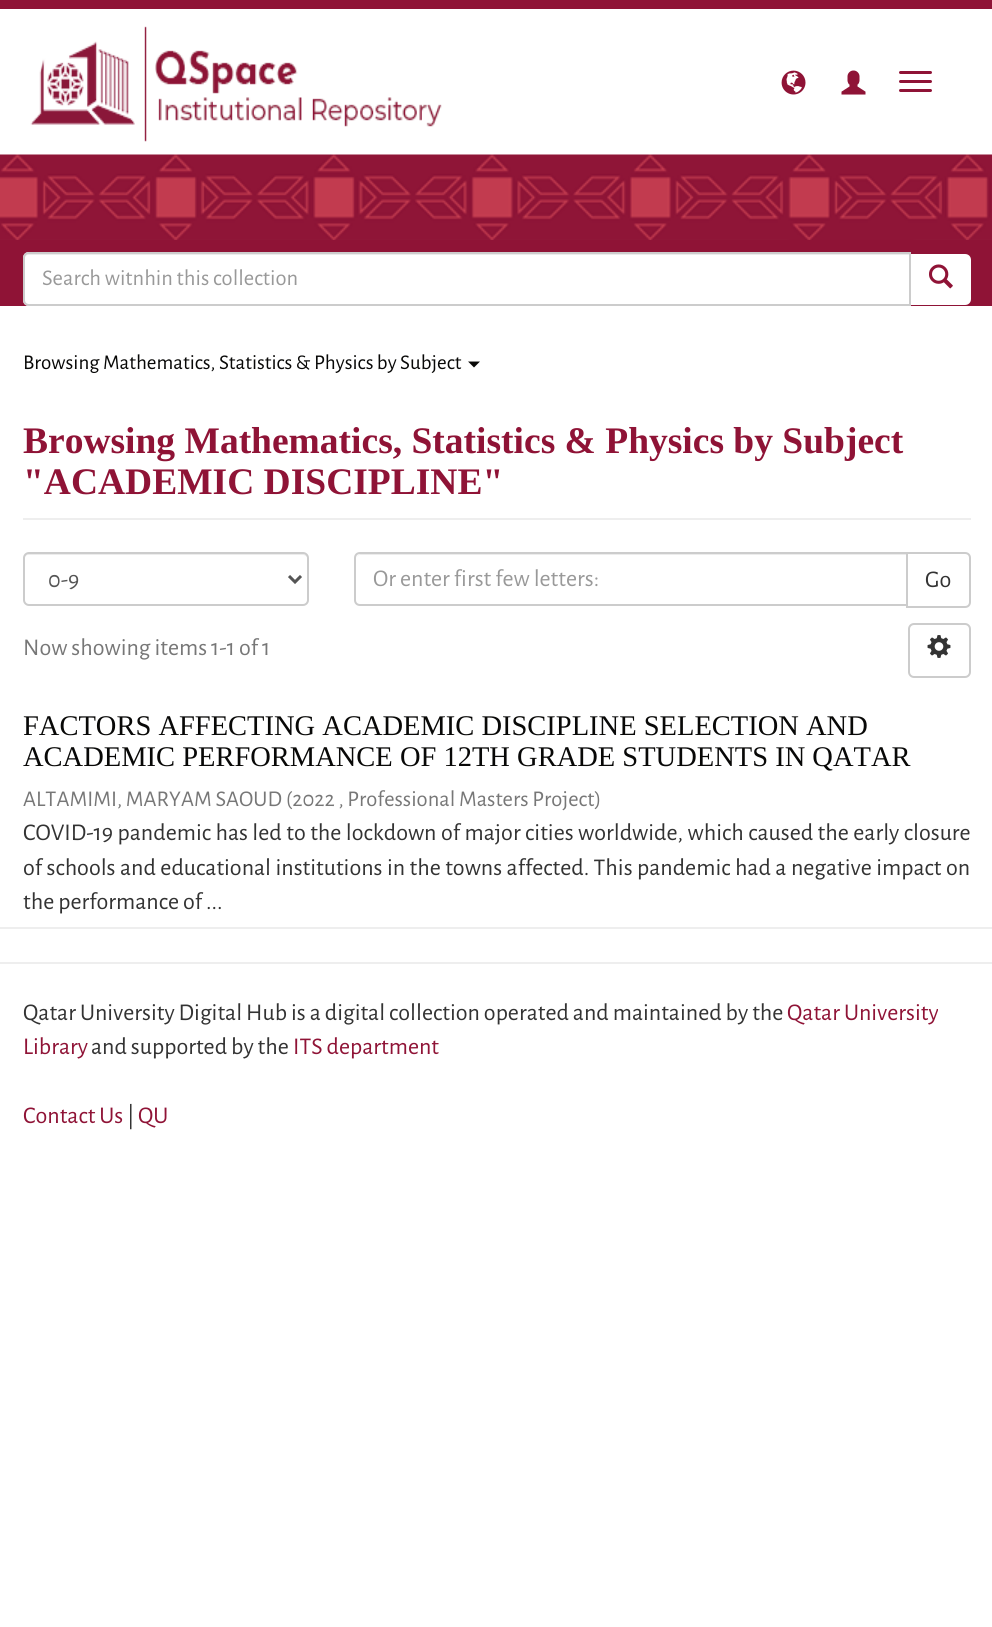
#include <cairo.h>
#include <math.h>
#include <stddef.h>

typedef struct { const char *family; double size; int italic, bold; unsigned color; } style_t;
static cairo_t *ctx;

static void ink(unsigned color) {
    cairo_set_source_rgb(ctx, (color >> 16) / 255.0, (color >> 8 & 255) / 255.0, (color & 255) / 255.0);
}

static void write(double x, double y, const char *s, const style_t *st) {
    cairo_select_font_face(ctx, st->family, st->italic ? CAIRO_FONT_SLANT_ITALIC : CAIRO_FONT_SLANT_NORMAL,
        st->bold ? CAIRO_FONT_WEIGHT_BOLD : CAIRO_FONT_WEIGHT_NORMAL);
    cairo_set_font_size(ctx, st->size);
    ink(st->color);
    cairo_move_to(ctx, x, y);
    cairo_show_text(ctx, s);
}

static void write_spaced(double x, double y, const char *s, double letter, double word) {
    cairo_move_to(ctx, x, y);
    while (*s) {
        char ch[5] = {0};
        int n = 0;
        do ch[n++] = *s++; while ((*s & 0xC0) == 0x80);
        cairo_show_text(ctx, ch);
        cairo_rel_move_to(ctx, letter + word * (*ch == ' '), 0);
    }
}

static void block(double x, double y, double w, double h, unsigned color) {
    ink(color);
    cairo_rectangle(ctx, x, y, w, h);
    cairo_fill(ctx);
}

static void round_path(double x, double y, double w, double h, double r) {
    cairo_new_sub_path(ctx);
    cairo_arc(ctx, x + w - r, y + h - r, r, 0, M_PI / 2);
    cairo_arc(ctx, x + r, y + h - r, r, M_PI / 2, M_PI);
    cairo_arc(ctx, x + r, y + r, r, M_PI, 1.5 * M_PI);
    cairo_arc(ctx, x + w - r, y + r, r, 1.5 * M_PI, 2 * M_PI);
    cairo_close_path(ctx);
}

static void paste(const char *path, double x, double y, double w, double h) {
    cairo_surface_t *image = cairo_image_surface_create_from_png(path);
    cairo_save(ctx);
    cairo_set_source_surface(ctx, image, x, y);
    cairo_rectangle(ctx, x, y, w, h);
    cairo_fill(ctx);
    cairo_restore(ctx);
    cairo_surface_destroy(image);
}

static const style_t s1 = {"Alegreya Sans", 22.5, 0, 0, 0x999999};
static const style_t s2 = {"Alegreya Sans", 21, 0, 0, 0x080807};
static const style_t s3 = {"Liberation Serif", 37.5, 0, 1, 0x8f1336};
static const style_t s4 = {"Alegreya Sans", 24, 0, 0, 0x555555};
static const style_t s5 = {"Alegreya Sans", 24, 0, 0, 0x999999};
static const style_t s6 = {"Alegreya Sans", 24, 0, 0, 0x333333};
static const style_t s7 = {"Alegreya Sans", 24, 0, 0, 0x777777};
static const style_t s8 = {"Liberation Serif", 28.5, 0, 0, 0x080807};
static const style_t s9 = {"Alegreya Sans", 22.5, 0, 0, 0x777777};
static const style_t s10 = {"Alegreya Sans", 24, 0, 0, 0x8f1336};

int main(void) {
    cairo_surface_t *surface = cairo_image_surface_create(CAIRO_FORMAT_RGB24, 992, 1627);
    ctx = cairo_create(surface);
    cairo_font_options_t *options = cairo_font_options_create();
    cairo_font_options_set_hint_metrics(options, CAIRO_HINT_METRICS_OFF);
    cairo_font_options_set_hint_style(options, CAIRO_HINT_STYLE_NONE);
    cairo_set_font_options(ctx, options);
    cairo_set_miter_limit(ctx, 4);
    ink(0xffffff);
    cairo_paint(ctx);
    block(0, 0, 992, 9, 0x8f1336);
    paste("pic1.png", 30, 26, 412, 116);
    paste("pic2.png", 781, 70, 25, 25);
    paste("pic3.png", 841, 70, 25, 25);
    round_path(899, 71, 33, 3, 1.5);
    cairo_fill(ctx);
    round_path(899, 80, 33, 3, 1.5);
    cairo_fill(ctx);
    round_path(899, 89, 33, 3, 1.5);
    cairo_fill(ctx);
    paste("pic4.png", 0, 154, 992, 86);
    block(0, 240, 992, 66, 0x8f1336);
    ink(0xffffff);
    cairo_new_path(ctx);
    cairo_move_to(ctx, 909, 254);
    cairo_line_to(ctx, 965, 254);
    cairo_curve_to(ctx, 968.5, 254, 971, 256.5, 971, 260);
    cairo_line_to(ctx, 971, 299);
    cairo_curve_to(ctx, 971, 302.5, 968.5, 305, 965, 305);
    cairo_line_to(ctx, 909, 305);
    cairo_close_path(ctx);
    cairo_fill(ctx);
    cairo_new_path(ctx);
    cairo_move_to(ctx, 29, 252);
    cairo_line_to(ctx, 911, 252);
    cairo_line_to(ctx, 911, 306);
    cairo_line_to(ctx, 29, 306);
    cairo_curve_to(ctx, 25.5, 306, 23, 303.5, 23, 300);
    cairo_line_to(ctx, 23, 258);
    cairo_curve_to(ctx, 23, 254.5, 25.5, 252, 29, 252);
    cairo_close_path(ctx);
    cairo_fill(ctx);
    ink(0xececec);
    cairo_new_path(ctx);
    cairo_move_to(ctx, 28, 255);
    cairo_line_to(ctx, 909, 255);
    cairo_line_to(ctx, 909, 254);
    cairo_line_to(ctx, 29, 254);
    cairo_curve_to(ctx, 26, 254, 24, 256, 24, 259);
    cairo_line_to(ctx, 24, 260);
    cairo_curve_to(ctx, 24, 257, 26, 255, 28, 255);
    cairo_close_path(ctx);
    cairo_fill(ctx);
    cairo_new_path(ctx);
    cairo_move_to(ctx, 29, 253);
    cairo_line_to(ctx, 910, 253);
    cairo_line_to(ctx, 910, 305);
    cairo_line_to(ctx, 29, 305);
    cairo_curve_to(ctx, 26, 305, 24, 303, 24, 300);
    cairo_line_to(ctx, 24, 258);
    cairo_curve_to(ctx, 24, 255, 26, 253, 29, 253);
    cairo_close_path(ctx);
    ink(0xcccccc);
    cairo_stroke(ctx);
    write(42, 285, "Search witnhin this collection", &s1);
    paste("pic5.png", 929, 264, 24, 25);
    write(23, 369, "Browsing Mathematics, Statistics & Physics by Subject", &s2);
    cairo_new_path(ctx);
    cairo_move_to(ctx, 468, 361.5);
    cairo_line_to(ctx, 480, 361.5);
    cairo_line_to(ctx, 474, 367.5);
    cairo_close_path(ctx);
    cairo_fill(ctx);
    block(23, 518, 948, 2, 0xeeeeee);
    write(23, 453, "Browsing Mathematics, Statistics & Physics by Subject", &s3);
    write(23, 494, "\"ACADEMIC DISCIPLINE\"", &s3);
    ink(0xececec);
    cairo_new_path(ctx);
    cairo_move_to(ctx, 28, 555);
    cairo_line_to(ctx, 303, 555);
    cairo_curve_to(ctx, 305, 555, 308, 557, 308, 560);
    cairo_line_to(ctx, 308, 559);
    cairo_curve_to(ctx, 308, 556, 306, 554, 303, 554);
    cairo_line_to(ctx, 29, 554);
    cairo_curve_to(ctx, 26, 554, 24, 556, 24, 559);
    cairo_line_to(ctx, 24, 560);
    cairo_curve_to(ctx, 24, 557, 26, 555, 28, 555);
    cairo_close_path(ctx);
    cairo_fill(ctx);
    round_path(24, 553, 284, 52, 5);
    ink(0xcccccc);
    cairo_stroke(ctx);
    cairo_new_path(ctx);
    cairo_move_to(ctx, 289, 576);
    cairo_line_to(ctx, 295, 582);
    cairo_line_to(ctx, 301, 576);
    ink(0x555555);
    cairo_set_line_width(ctx, 3);
    cairo_stroke(ctx);
    write(48, 587, "0-9", &s4);
    cairo_new_path(ctx);
    cairo_move_to(ctx, 907, 553);
    cairo_line_to(ctx, 965, 553);
    cairo_curve_to(ctx, 968, 553, 970, 555, 970, 558);
    cairo_line_to(ctx, 970, 602);
    cairo_curve_to(ctx, 970, 605, 968, 607, 965, 607);
    cairo_line_to(ctx, 907, 607);
    cairo_close_path(ctx);
    ink(0xcccccc);
    cairo_set_line_width(ctx, 2);
    cairo_stroke(ctx);
    ink(0xffffff);
    cairo_new_path(ctx);
    cairo_move_to(ctx, 360, 552);
    cairo_line_to(ctx, 908, 552);
    cairo_line_to(ctx, 908, 606);
    cairo_line_to(ctx, 360, 606);
    cairo_curve_to(ctx, 356.5, 606, 354, 603.5, 354, 600);
    cairo_line_to(ctx, 354, 558);
    cairo_curve_to(ctx, 354, 554.5, 356.5, 552, 360, 552);
    cairo_close_path(ctx);
    cairo_fill(ctx);
    ink(0xececec);
    cairo_new_path(ctx);
    cairo_move_to(ctx, 360, 555);
    cairo_line_to(ctx, 906, 555);
    cairo_line_to(ctx, 906, 554);
    cairo_line_to(ctx, 361, 554);
    cairo_curve_to(ctx, 358, 554, 356, 557, 356, 560);
    cairo_curve_to(ctx, 356, 557, 358, 555, 360, 555);
    cairo_close_path(ctx);
    cairo_fill(ctx);
    cairo_new_path(ctx);
    cairo_move_to(ctx, 360, 553);
    cairo_line_to(ctx, 907, 553);
    cairo_line_to(ctx, 907, 605);
    cairo_line_to(ctx, 360, 605);
    cairo_curve_to(ctx, 357, 605, 355, 603, 355, 600);
    cairo_line_to(ctx, 355, 558);
    cairo_curve_to(ctx, 355, 555, 357, 553, 360, 553);
    cairo_close_path(ctx);
    ink(0xcccccc);
    cairo_stroke(ctx);
    write(373, 586, "Or enter first few letters:", &s5);
    write(925, 587, "Go", &s6);
    write(23, 655, "Now showing items 1-1 of 1", &s7);
    round_path(909, 624, 61, 53, 5);
    ink(0xcccccc);
    cairo_stroke(ctx);
    paste("pic6.png", 927, 635, 24, 23);
    block(0, 927, 992, 2, 0xeeeeee);
    write(23, 735, "FACTORS AFFECTING ACADEMIC DISCIPLINE SELECTION AND", &s8);
    write(23, 766, "ACADEMIC PERFORMANCE OF 12TH GRADE STUDENTS IN QATAR", &s8);
    write(23, 806, "ALTAMIMI, MARYAM SAOUD (2022 , Professional Masters Project)", &s9);
    cairo_set_font_size(ctx, 24);
    ink(0x333333);
    write_spaced(23, 840, "COVID-19 pandemic has led to the lockdown of major cities worldwide, which caused the early closure", 0, 0.5);
    write_spaced(23, 875, "of schools and educational institutions in the towns affected. This pandemic had a negative impact on", 0, 0.5);
    write(23, 909, "the performance of ...", &s6);
    block(0, 962, 992, 2, 0xeeeeee);
    write(23, 1020, "Qatar University Digital Hub is a digital collection operated and maintained by the", &s6);
    write(787, 1020, "Qatar University", &s10);
    write(23, 1054, "Library", &s10);
    write(91, 1054, "and supported by the", &s6);
    write(293, 1054, "ITS department", &s10);
    write(23, 1123, "Contact Us", &s10);
    write(127, 1123, "|", &s6);
    write(138, 1123, "QU", &s10);
    cairo_surface_write_to_png(surface, "screenshot.png");
    cairo_font_options_destroy(options);
    cairo_destroy(ctx);
    cairo_surface_destroy(surface);
    return 0;
}
